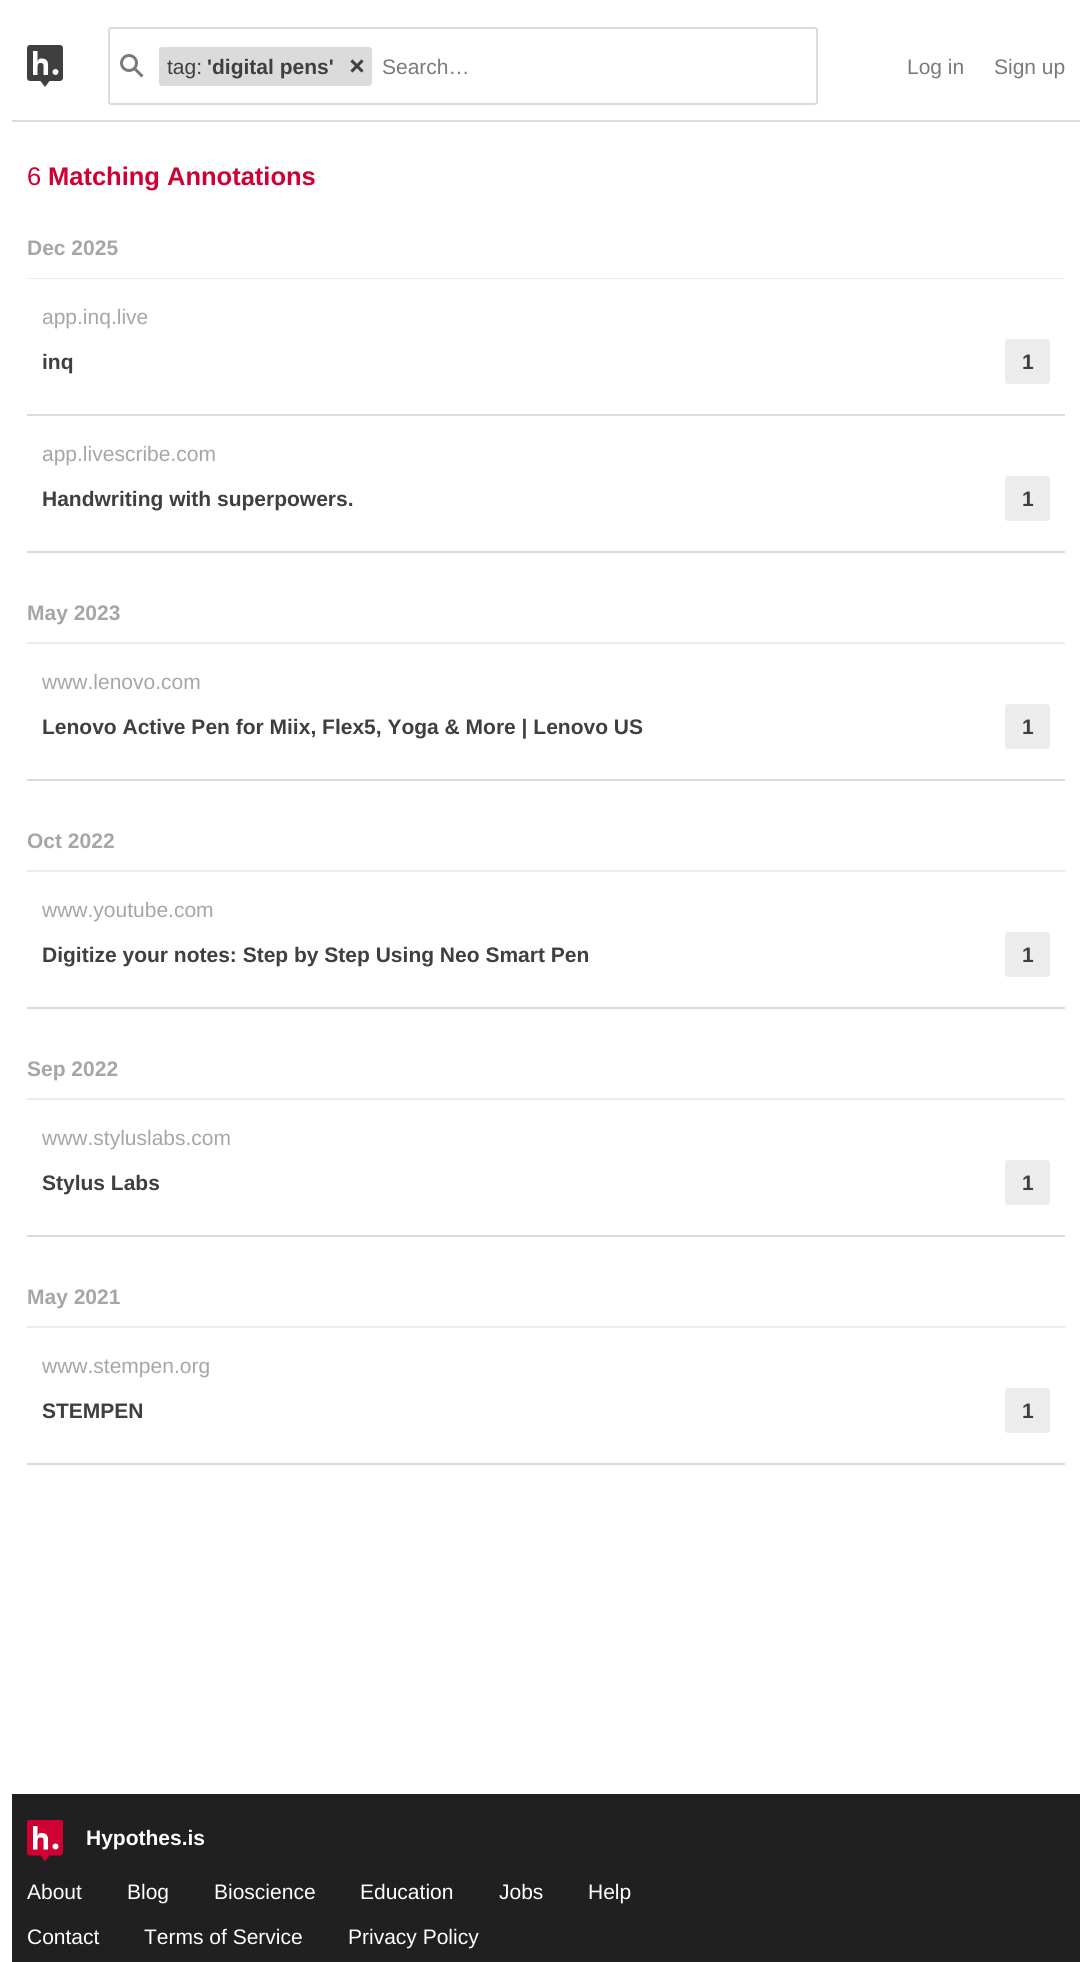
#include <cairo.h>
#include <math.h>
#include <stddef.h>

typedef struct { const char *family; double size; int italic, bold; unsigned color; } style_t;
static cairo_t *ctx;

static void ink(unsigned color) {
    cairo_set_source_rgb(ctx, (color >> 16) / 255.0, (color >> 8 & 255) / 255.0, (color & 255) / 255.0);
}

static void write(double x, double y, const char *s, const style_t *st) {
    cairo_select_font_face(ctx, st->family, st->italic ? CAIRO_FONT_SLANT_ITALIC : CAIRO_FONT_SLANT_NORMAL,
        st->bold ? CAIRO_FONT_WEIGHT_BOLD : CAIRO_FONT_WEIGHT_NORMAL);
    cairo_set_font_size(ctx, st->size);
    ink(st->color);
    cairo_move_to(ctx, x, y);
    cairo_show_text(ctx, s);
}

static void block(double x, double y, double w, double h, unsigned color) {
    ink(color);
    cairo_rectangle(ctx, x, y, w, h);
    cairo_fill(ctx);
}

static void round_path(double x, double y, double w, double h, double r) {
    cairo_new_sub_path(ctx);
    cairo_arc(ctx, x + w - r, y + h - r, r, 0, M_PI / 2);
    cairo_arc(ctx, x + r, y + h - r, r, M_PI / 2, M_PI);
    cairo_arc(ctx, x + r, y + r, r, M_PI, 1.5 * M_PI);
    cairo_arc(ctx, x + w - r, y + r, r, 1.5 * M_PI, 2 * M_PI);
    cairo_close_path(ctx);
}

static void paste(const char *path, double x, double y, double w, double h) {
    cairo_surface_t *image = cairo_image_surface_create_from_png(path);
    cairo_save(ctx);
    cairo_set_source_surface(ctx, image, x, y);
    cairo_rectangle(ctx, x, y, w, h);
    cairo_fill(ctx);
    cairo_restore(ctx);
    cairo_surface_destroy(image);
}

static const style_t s1 = {"Liberation Sans", 21, 0, 0, 0x3f3f3f};
static const style_t s2 = {"Liberation Sans", 21, 0, 1, 0x3f3f3f};
static const style_t s3 = {"Liberation Sans", 21, 0, 0, 0x7a7a7a};
static const style_t s4 = {"Liberation Sans", 25.5, 0, 0, 0xd00032};
static const style_t s5 = {"Liberation Sans", 25.5, 0, 1, 0xd00032};
static const style_t s6 = {"Liberation Sans", 21, 0, 1, 0xa6a6a6};
static const style_t s7 = {"Liberation Sans", 21, 0, 0, 0xa6a6a6};
static const style_t s8 = {"Liberation Sans", 21, 0, 1, 0xffffff};
static const style_t s9 = {"Liberation Sans", 21, 0, 0, 0xffffff};

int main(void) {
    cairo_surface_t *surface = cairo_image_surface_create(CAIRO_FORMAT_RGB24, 1092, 1962);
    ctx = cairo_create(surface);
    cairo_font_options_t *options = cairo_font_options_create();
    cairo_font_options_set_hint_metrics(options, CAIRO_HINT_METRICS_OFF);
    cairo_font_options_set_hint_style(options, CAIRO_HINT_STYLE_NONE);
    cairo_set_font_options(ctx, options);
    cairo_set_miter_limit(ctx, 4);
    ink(0xffffff);
    cairo_paint(ctx);
    block(12, 120, 1068, 2, 0xdbdbdb);
    paste("pic1.png", 27, 45, 36, 42);
    round_path(109, 28, 708, 76, 2);
    cairo_stroke(ctx);
    paste("pic2.png", 120, 54, 24, 24);
    round_path(159, 47, 213, 39, 3);
    cairo_fill(ctx);
    write(167, 74, "tag:", &s1);
    write(207, 74, "'digital pens'", &s2);
    paste("pic3.png", 350, 59, 14, 14);
    write(382, 74, "Search…", &s3);
    write(907, 74, "Log in", &s3);
    write(994, 74, "Sign up", &s3);
    write(27, 185, "6", &s4);
    write(48, 185, "Matching Annotations", &s5);
    block(27, 278, 1038, 1, 0xececec);
    write(27, 255, "Dec 2025", &s6);
    block(27, 414, 1038, 2, 0xdbdbdb);
    write(42, 324, "app.inq.live", &s7);
    write(42, 369, "inq", &s2);
    ink(0xececec);
    round_path(1005, 339, 45, 45, 3);
    cairo_fill(ctx);
    write(1022, 369, "1", &s2);
    block(27, 551, 1038, 2, 0xdbdbdb);
    write(42, 461, "app.livescribe.com", &s7);
    write(42, 506, "Handwriting with superpowers.", &s2);
    ink(0xececec);
    round_path(1005, 476, 45, 45, 3);
    cairo_fill(ctx);
    write(1022, 506, "1", &s2);
    block(27, 642, 1038, 2, 0xececec);
    write(27, 620, "May 2023", &s6);
    block(27, 779, 1038, 2, 0xdbdbdb);
    write(42, 689, "www.lenovo.com", &s7);
    write(42, 734, "Lenovo Active Pen for Miix, Flex5, Yoga & More | Lenovo US", &s2);
    ink(0xececec);
    round_path(1005, 704, 45, 45, 3);
    cairo_fill(ctx);
    write(1022, 734, "1", &s2);
    block(27, 870, 1038, 2, 0xececec);
    write(27, 848, "Oct 2022", &s6);
    block(27, 1007, 1038, 2, 0xdbdbdb);
    write(42, 917, "www.youtube.com", &s7);
    write(42, 962, "Digitize your notes: Step by Step Using Neo Smart Pen", &s2);
    ink(0xececec);
    round_path(1005, 932, 45, 45, 3);
    cairo_fill(ctx);
    write(1022, 962, "1", &s2);
    block(27, 1098, 1038, 2, 0xececec);
    write(27, 1076, "Sep 2022", &s6);
    block(27, 1235, 1038, 2, 0xdbdbdb);
    write(42, 1145, "www.styluslabs.com", &s7);
    write(42, 1190, "Stylus Labs", &s2);
    ink(0xececec);
    round_path(1005, 1160, 45, 45, 3);
    cairo_fill(ctx);
    write(1022, 1190, "1", &s2);
    block(27, 1326, 1038, 2, 0xececec);
    write(27, 1304, "May 2021", &s6);
    block(27, 1463, 1038, 2, 0xdbdbdb);
    write(42, 1373, "www.stempen.org", &s7);
    write(42, 1418, "STEMPEN", &s2);
    ink(0xececec);
    round_path(1005, 1388, 45, 45, 3);
    cairo_fill(ctx);
    write(1022, 1418, "1", &s2);
    block(12, 1794, 1068, 168, 0x202020);
    paste("pic4.png", 27, 1820, 36, 42);
    write(86, 1845, "Hypothes.is", &s8);
    write(27, 1899, "About", &s9);
    write(127, 1899, "Blog", &s9);
    write(214, 1899, "Bioscience", &s9);
    write(360, 1899, "Education", &s9);
    write(499, 1899, "Jobs", &s9);
    write(588, 1899, "Help", &s9);
    write(27, 1944, "Contact", &s9);
    write(144, 1944, "Terms of Service", &s9);
    write(348, 1944, "Privacy Policy", &s9);
    cairo_surface_write_to_png(surface, "screenshot.png");
    cairo_font_options_destroy(options);
    cairo_destroy(ctx);
    cairo_surface_destroy(surface);
    return 0;
}
